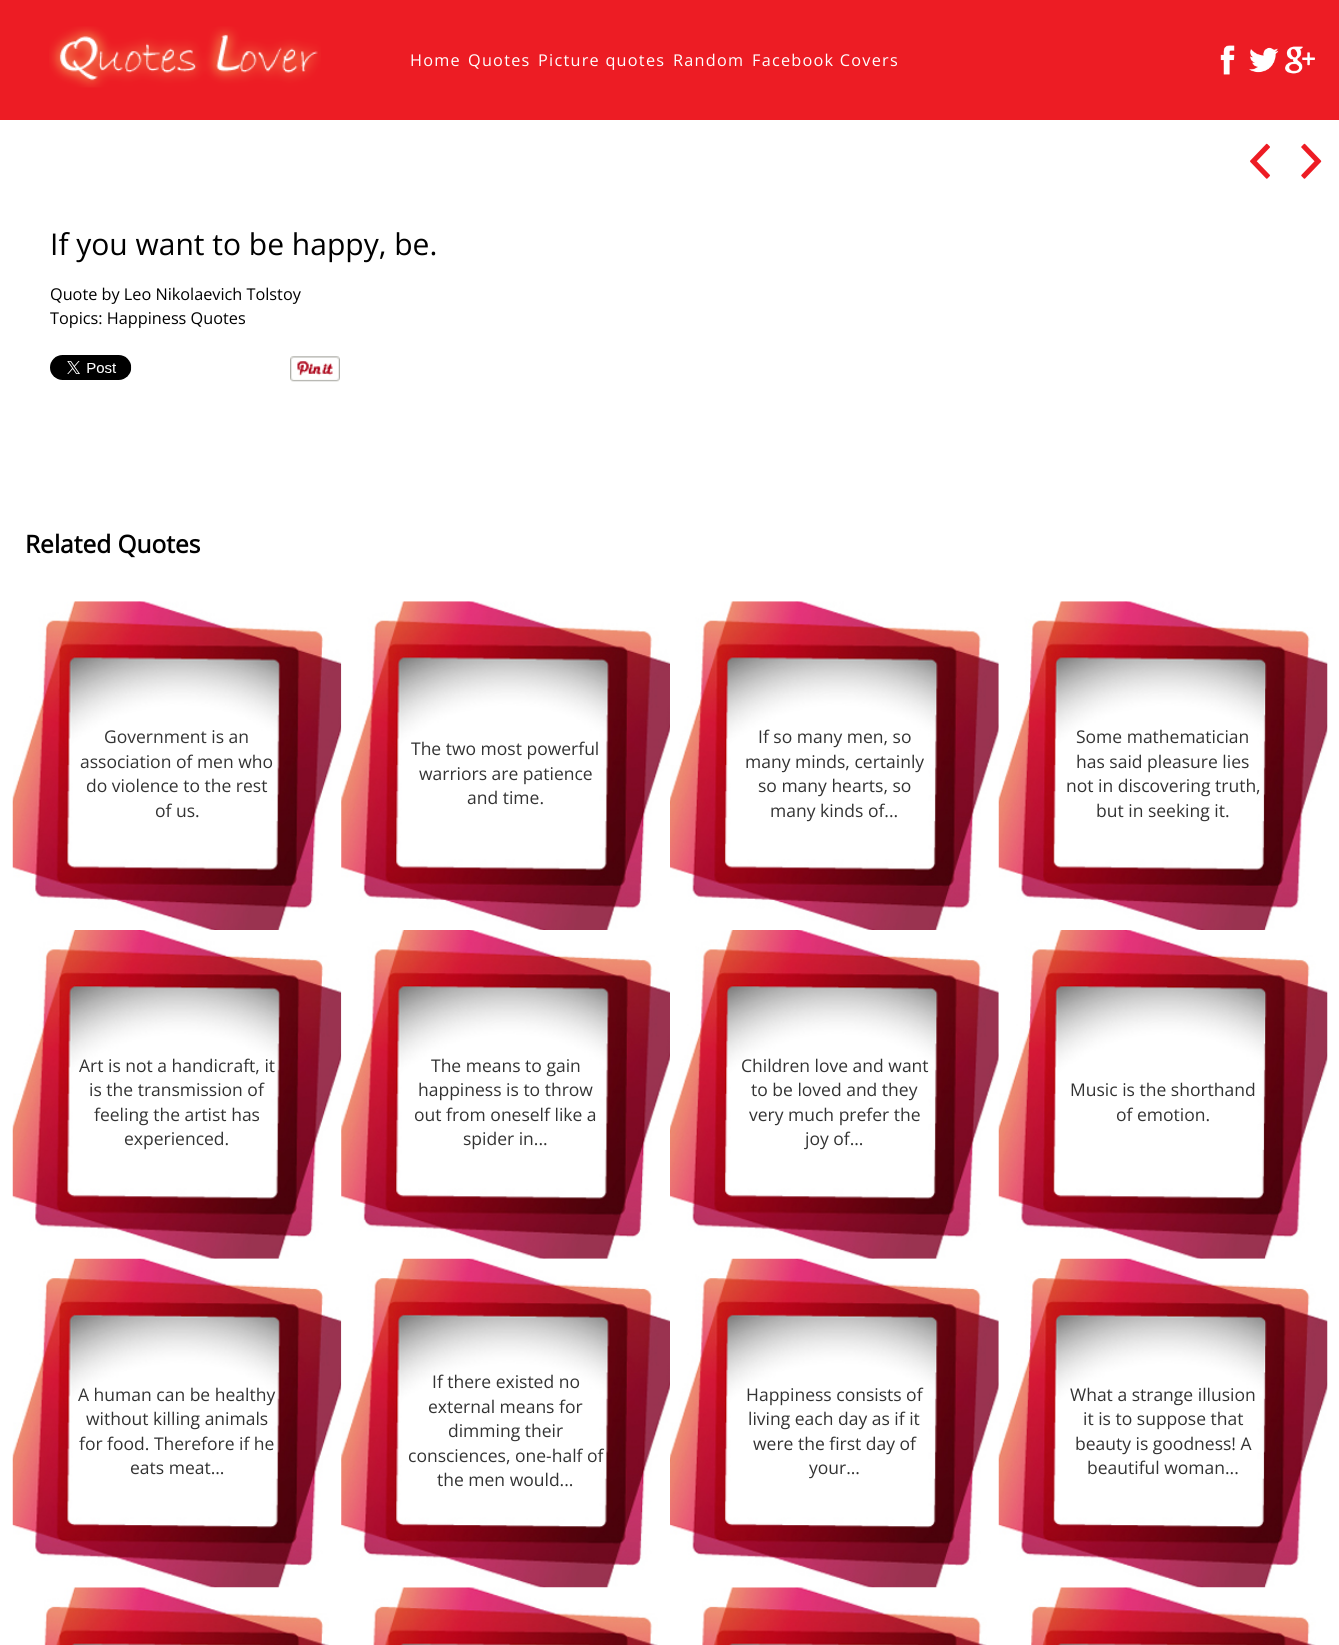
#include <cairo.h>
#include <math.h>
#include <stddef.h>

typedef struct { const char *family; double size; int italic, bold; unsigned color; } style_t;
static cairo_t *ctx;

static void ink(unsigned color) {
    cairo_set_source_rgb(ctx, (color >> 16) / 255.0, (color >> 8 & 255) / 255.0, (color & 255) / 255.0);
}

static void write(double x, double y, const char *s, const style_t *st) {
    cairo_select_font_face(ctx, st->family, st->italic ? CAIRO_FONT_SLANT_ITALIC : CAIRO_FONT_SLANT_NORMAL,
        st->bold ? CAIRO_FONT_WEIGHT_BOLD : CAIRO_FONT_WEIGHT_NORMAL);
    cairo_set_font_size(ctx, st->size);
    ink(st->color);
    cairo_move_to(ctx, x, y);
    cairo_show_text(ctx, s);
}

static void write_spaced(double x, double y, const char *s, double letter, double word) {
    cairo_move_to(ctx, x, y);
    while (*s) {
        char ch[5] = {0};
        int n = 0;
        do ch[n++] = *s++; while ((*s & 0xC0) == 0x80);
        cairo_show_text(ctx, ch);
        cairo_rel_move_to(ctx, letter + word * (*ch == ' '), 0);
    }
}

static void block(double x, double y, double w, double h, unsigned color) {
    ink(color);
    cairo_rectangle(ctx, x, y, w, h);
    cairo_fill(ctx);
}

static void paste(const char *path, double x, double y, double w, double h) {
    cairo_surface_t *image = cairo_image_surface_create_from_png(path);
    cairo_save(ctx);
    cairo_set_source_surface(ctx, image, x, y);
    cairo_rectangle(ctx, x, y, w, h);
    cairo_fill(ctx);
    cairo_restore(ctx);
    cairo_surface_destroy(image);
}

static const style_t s1 = {"Open Sans", 30, 0, 0, 0x000000};
static const style_t s2 = {"Open Sans", 16.25, 0, 0, 0x000000};
static const style_t s3 = {"Open Sans", 24.5, 0, 1, 0x000000};
static const style_t s4 = {"Open Sans", 17.5, 0, 0, 0x333333};

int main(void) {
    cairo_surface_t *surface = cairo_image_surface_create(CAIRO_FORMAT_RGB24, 1339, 1645);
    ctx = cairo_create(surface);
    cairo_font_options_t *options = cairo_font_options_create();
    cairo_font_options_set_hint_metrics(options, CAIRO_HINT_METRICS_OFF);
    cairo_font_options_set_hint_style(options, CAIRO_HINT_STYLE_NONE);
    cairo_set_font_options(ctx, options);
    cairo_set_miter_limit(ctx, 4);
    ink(0xffffff);
    cairo_paint(ctx);
    block(0, 0, 1339, 120, 0xed1c24);
    paste("pic1.png", 49, 26, 272, 62);
    cairo_select_font_face(ctx, "Open Sans", CAIRO_FONT_SLANT_NORMAL, CAIRO_FONT_WEIGHT_NORMAL);
    cairo_set_font_size(ctx, 16.25);
    ink(0xffffff);
    write_spaced(410, 66, "Home", 1.25, 0);
    write_spaced(468, 66, "Quotes", 1.25, 0);
    write_spaced(538, 66, "Picture quotes", 1.25, 0);
    write_spaced(673, 66, "Random", 1.25, 0);
    write_spaced(752, 66, "Facebook Covers", 1.25, 0);
    paste("pic2.png", 1220, 45, 15, 30);
    paste("pic3.png", 1249, 47, 30, 26);
    paste("pic4.png", 1285, 46, 30, 28);
    paste("pic5.png", 1250, 143, 20, 36);
    paste("pic6.png", 1301, 143, 21, 36);
    write(50, 255, "If you want to be happy, be.", &s1);
    write(50, 300, "Quote by Leo Nikolaevich Tolstoy", &s2);
    write(50, 324, "Topics: Happiness Quotes", &s2);
    paste("pic7.png", 50, 355, 82, 25);
    paste("pic8.png", 290, 356, 50, 26);
    write(25, 553, "Related Quotes", &s3);
    paste("pic9.png", 12, 601, 330, 329);
    write(104, 743, "Government is an", &s4);
    write(80, 768, "association of men who", &s4);
    write(86, 792, "do violence to the rest", &s4);
    write(155, 817, "of us.", &s4);
    paste("pic10.png", 341, 601, 329, 329);
    write(411, 755, "The two most powerful", &s4);
    write(419, 780, "warriors are patience", &s4);
    write(467, 804, "and time.", &s4);
    paste("pic11.png", 670, 601, 329, 329);
    write(758, 743, "If so many men, so", &s4);
    write(745, 768, "many minds, certainly", &s4);
    write(758, 792, "so many hearts, so", &s4);
    write(770, 817, "many kinds of...", &s4);
    paste("pic12.png", 998, 601, 330, 329);
    write(1076, 743, "Some mathematician", &s4);
    write(1076, 768, "has said pleasure lies", &s4);
    write(1066, 792, "not in discovering truth,", &s4);
    write(1096, 817, "but in seeking it.", &s4);
    paste("pic13.png", 12, 930, 330, 329);
    write(79, 1072, "Art is not a handicraft, it", &s4);
    write(89, 1096, "is the transmission of", &s4);
    write(94, 1121, "feeling the artist has", &s4);
    write(124, 1145, "experienced.", &s4);
    paste("pic14.png", 341, 930, 329, 329);
    write(431, 1072, "The means to gain", &s4);
    write(418, 1096, "happiness is to throw", &s4);
    write(414, 1121, "out from oneself like a", &s4);
    write(463, 1145, "spider in...", &s4);
    paste("pic15.png", 670, 930, 329, 329);
    write(741, 1072, "Children love and want", &s4);
    write(751, 1096, "to be loved and they", &s4);
    write(749, 1121, "very much prefer the", &s4);
    write(805, 1145, "joy of...", &s4);
    paste("pic16.png", 998, 930, 330, 329);
    write(1070, 1096, "Music is the shorthand", &s4);
    write(1116, 1121, "of emotion.", &s4);
    paste("pic17.png", 12, 1258, 330, 330);
    write(78, 1401, "A human can be healthy", &s4);
    write(86, 1425, "without killing animals", &s4);
    write(79, 1450, "for food. Therefore if he", &s4);
    write(130, 1474, "eats meat...", &s4);
    paste("pic18.png", 341, 1258, 329, 330);
    write(432, 1388, "If there existed no", &s4);
    write(428, 1413, "external means for", &s4);
    write(448, 1437, "dimming their", &s4);
    write(408, 1462, "consciences, one-half of", &s4);
    write(437, 1486, "the men would...", &s4);
    paste("pic19.png", 670, 1258, 329, 330);
    write(746, 1401, "Happiness consists of", &s4);
    write(748, 1425, "living each day as if it", &s4);
    write(753, 1450, "were the first day of", &s4);
    write(809, 1474, "your...", &s4);
    paste("pic20.png", 998, 1258, 330, 330);
    write(1070, 1401, "What a strange illusion", &s4);
    write(1083, 1425, "it is to suppose that", &s4);
    write(1075, 1450, "beauty is goodness! A", &s4);
    write(1087, 1474, "beautiful woman...", &s4);
    paste("pic21.png", 44, 1587, 285, 58);
    paste("pic22.png", 373, 1587, 285, 58);
    paste("pic23.png", 702, 1587, 285, 58);
    paste("pic24.png", 1029, 1587, 287, 58);
    cairo_surface_write_to_png(surface, "screenshot.png");
    cairo_font_options_destroy(options);
    cairo_destroy(ctx);
    cairo_surface_destroy(surface);
    return 0;
}
